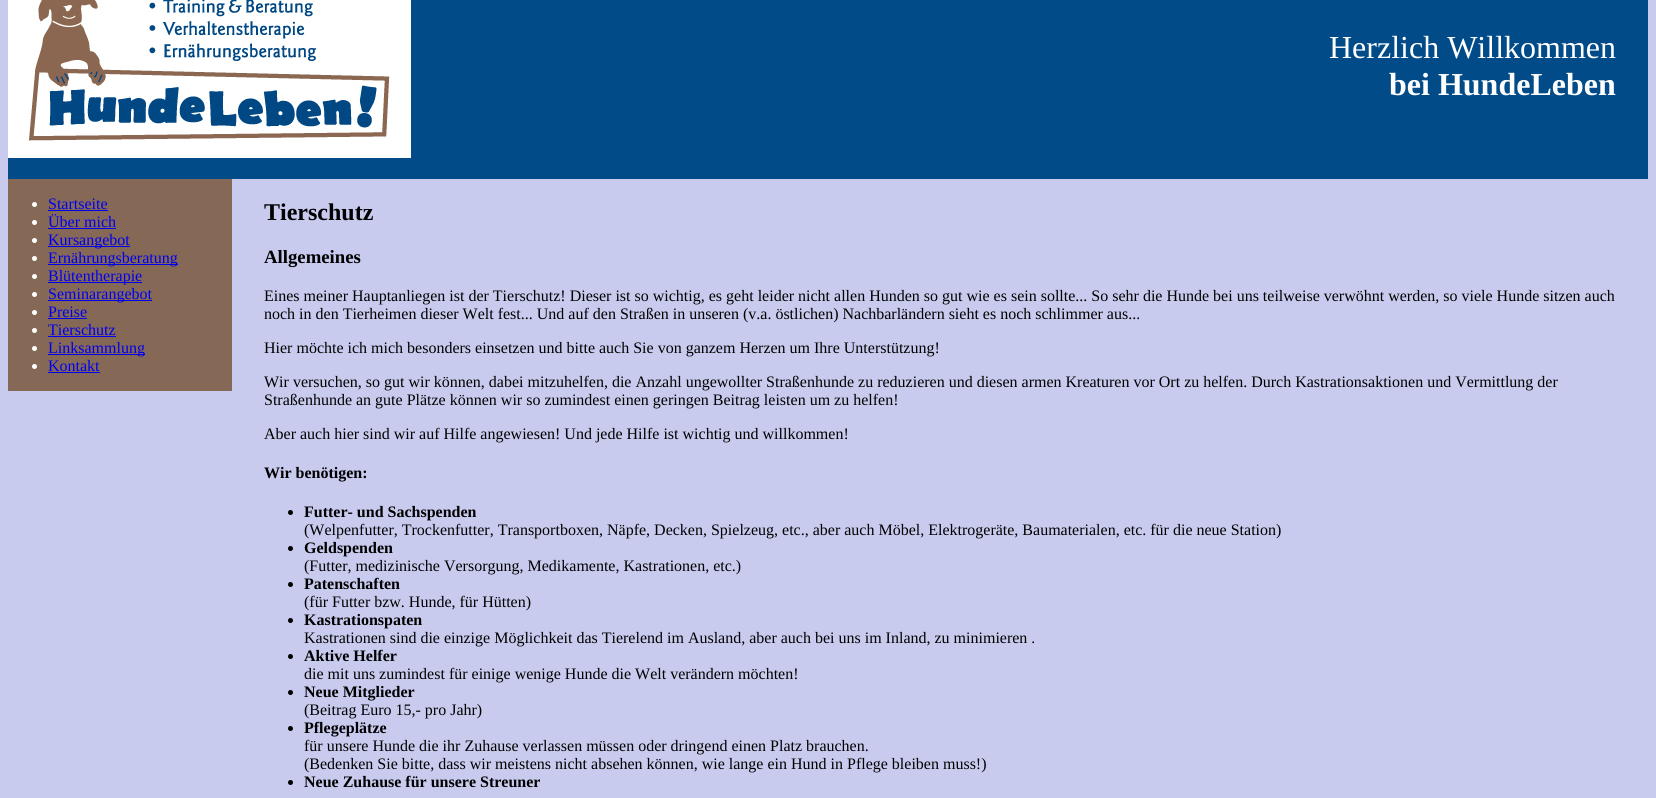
#include <cairo.h>
#include <math.h>
#include <stddef.h>

typedef struct { const char *family; double size; int italic, bold; unsigned color; } style_t;
static cairo_t *ctx;

static void ink(unsigned color) {
    cairo_set_source_rgb(ctx, (color >> 16) / 255.0, (color >> 8 & 255) / 255.0, (color & 255) / 255.0);
}

static void write(double x, double y, const char *s, const style_t *st) {
    cairo_select_font_face(ctx, st->family, st->italic ? CAIRO_FONT_SLANT_ITALIC : CAIRO_FONT_SLANT_NORMAL,
        st->bold ? CAIRO_FONT_WEIGHT_BOLD : CAIRO_FONT_WEIGHT_NORMAL);
    cairo_set_font_size(ctx, st->size);
    ink(st->color);
    cairo_move_to(ctx, x, y);
    cairo_show_text(ctx, s);
}

static void block(double x, double y, double w, double h, unsigned color) {
    ink(color);
    cairo_rectangle(ctx, x, y, w, h);
    cairo_fill(ctx);
}

static void paste(const char *path, double x, double y, double w, double h) {
    cairo_surface_t *image = cairo_image_surface_create_from_png(path);
    cairo_save(ctx);
    cairo_set_source_surface(ctx, image, x, y);
    cairo_rectangle(ctx, x, y, w, h);
    cairo_fill(ctx);
    cairo_restore(ctx);
    cairo_surface_destroy(image);
}

static const style_t s1 = {"Liberation Serif", 32, 0, 0, 0xffffff};
static const style_t s2 = {"Liberation Serif", 32, 0, 1, 0xffffff};
static const style_t s3 = {"Liberation Serif", 16, 0, 0, 0x0000ee};
static const style_t s4 = {"Liberation Serif", 24, 0, 1, 0x000000};
static const style_t s5 = {"Liberation Serif", 18.75, 0, 1, 0x000000};
static const style_t s6 = {"Liberation Serif", 16, 0, 0, 0x000000};
static const style_t s7 = {"Liberation Serif", 16, 0, 1, 0x000000};

int main(void) {
    cairo_surface_t *surface = cairo_image_surface_create(CAIRO_FORMAT_RGB24, 1656, 798);
    ctx = cairo_create(surface);
    cairo_font_options_t *options = cairo_font_options_create();
    cairo_font_options_set_hint_metrics(options, CAIRO_HINT_METRICS_OFF);
    cairo_font_options_set_hint_style(options, CAIRO_HINT_STYLE_NONE);
    cairo_set_font_options(ctx, options);
    cairo_set_miter_limit(ctx, 4);
    ink(0xc8cbee);
    cairo_paint(ctx);
    block(8, 0, 1640, 179, 0x004b88);
    paste("pic1.png", 8, 0, 403, 158);
    write(1329, 58, "Herzlich Willkommen", &s1);
    write(1389, 95, "bei HundeLeben", &s2);
    block(8, 179, 224, 212, 0x856856);
    ink(0xffffff);
    cairo_new_path(ctx);
    cairo_arc(ctx, 34.5, 204.5, 2.5, 0, 2 * M_PI);
    cairo_fill(ctx);
    write(48, 209, "Startseite", &s3);
    block(48, 210, 60, 1, 0x0000ee);
    ink(0xffffff);
    cairo_new_path(ctx);
    cairo_arc(ctx, 34.5, 222.5, 2.5, 0, 2 * M_PI);
    cairo_fill(ctx);
    write(48, 227, "Über mich", &s3);
    block(48, 228, 68, 1, 0x0000ee);
    ink(0xffffff);
    cairo_new_path(ctx);
    cairo_arc(ctx, 34.5, 240.5, 2.5, 0, 2 * M_PI);
    cairo_fill(ctx);
    block(48, 246, 82, 1, 0x0000ee);
    write(48, 245, "Kursangebot", &s3);
    ink(0xffffff);
    cairo_new_path(ctx);
    cairo_arc(ctx, 34.5, 258.5, 2.5, 0, 2 * M_PI);
    cairo_fill(ctx);
    block(48, 264, 130, 1, 0x0000ee);
    write(48, 263, "Ernährungsberatung", &s3);
    ink(0xffffff);
    cairo_new_path(ctx);
    cairo_arc(ctx, 34.5, 276.5, 2.5, 0, 2 * M_PI);
    cairo_fill(ctx);
    block(48, 282, 94, 1, 0x0000ee);
    write(48, 281, "Blütentherapie", &s3);
    ink(0xffffff);
    cairo_new_path(ctx);
    cairo_arc(ctx, 34.5, 294.5, 2.5, 0, 2 * M_PI);
    cairo_fill(ctx);
    block(48, 300, 104, 1, 0x0000ee);
    write(48, 299, "Seminarangebot", &s3);
    ink(0xffffff);
    cairo_new_path(ctx);
    cairo_arc(ctx, 34.5, 312.5, 2.5, 0, 2 * M_PI);
    cairo_fill(ctx);
    write(48, 317, "Preise", &s3);
    block(48, 318, 39, 1, 0x0000ee);
    ink(0xffffff);
    cairo_new_path(ctx);
    cairo_arc(ctx, 34.5, 330.5, 2.5, 0, 2 * M_PI);
    cairo_fill(ctx);
    write(48, 335, "Tierschutz", &s3);
    block(48, 336, 68, 1, 0x0000ee);
    ink(0xffffff);
    cairo_new_path(ctx);
    cairo_arc(ctx, 34.5, 348.5, 2.5, 0, 2 * M_PI);
    cairo_fill(ctx);
    block(48, 354, 97, 1, 0x0000ee);
    write(48, 353, "Linksammlung", &s3);
    ink(0xffffff);
    cairo_new_path(ctx);
    cairo_arc(ctx, 34.5, 366.5, 2.5, 0, 2 * M_PI);
    cairo_fill(ctx);
    write(48, 371, "Kontakt", &s3);
    block(48, 372, 52, 1, 0x0000ee);
    write(264, 220, "Tierschutz", &s4);
    write(264, 263, "Allgemeines", &s5);
    write(264, 301, "Eines meiner Hauptanliegen ist der Tierschutz! Dieser ist so wichtig, es geht leider nicht allen Hunden so gut wie es sein sollte... So sehr die Hunde bei uns teilweise verwöhnt werden, so viele Hunde sitzen auch", &s6);
    write(264, 319, "noch in den Tierheimen dieser Welt fest... Und auf den Straßen in unseren (v.a. östlichen) Nachbarländern sieht es noch schlimmer aus...", &s6);
    write(264, 353, "Hier möchte ich mich besonders einsetzen und bitte auch Sie von ganzem Herzen um Ihre Unterstützung!", &s6);
    write(264, 387, "Wir versuchen, so gut wir können, dabei mitzuhelfen, die Anzahl ungewollter Straßenhunde zu reduzieren und diesen armen Kreaturen vor Ort zu helfen. Durch Kastrationsaktionen und Vermittlung der", &s6);
    write(264, 405, "Straßenhunde an gute Plätze können wir so zumindest einen geringen Beitrag leisten um zu helfen!", &s6);
    write(264, 439, "Aber auch hier sind wir auf Hilfe angewiesen! Und jede Hilfe ist wichtig und willkommen!", &s6);
    write(264, 478, "Wir benötigen:", &s7);
    cairo_new_path(ctx);
    cairo_arc(ctx, 290.5, 512.5, 2.5, 0, 2 * M_PI);
    cairo_fill(ctx);
    write(304, 517, "Futter- und Sachspenden", &s7);
    write(304, 535, "(Welpenfutter, Trockenfutter, Transportboxen, Näpfe, Decken, Spielzeug, etc., aber auch Möbel, Elektrogeräte, Baumaterialen, etc. für die neue Station)", &s6);
    cairo_new_path(ctx);
    cairo_arc(ctx, 290.5, 548.5, 2.5, 0, 2 * M_PI);
    cairo_fill(ctx);
    write(304, 553, "Geldspenden", &s7);
    write(304, 571, "(Futter, medizinische Versorgung, Medikamente, Kastrationen, etc.)", &s6);
    cairo_new_path(ctx);
    cairo_arc(ctx, 290.5, 584.5, 2.5, 0, 2 * M_PI);
    cairo_fill(ctx);
    write(304, 589, "Patenschaften", &s7);
    write(304, 607, "(für Futter bzw. Hunde, für Hütten)", &s6);
    cairo_new_path(ctx);
    cairo_arc(ctx, 290.5, 620.5, 2.5, 0, 2 * M_PI);
    cairo_fill(ctx);
    write(304, 625, "Kastrationspaten", &s7);
    write(304, 643, "Kastrationen sind die einzige Möglichkeit das Tierelend im Ausland, aber auch bei uns im Inland, zu minimieren .", &s6);
    cairo_new_path(ctx);
    cairo_arc(ctx, 290.5, 656.5, 2.5, 0, 2 * M_PI);
    cairo_fill(ctx);
    write(304, 661, "Aktive Helfer", &s7);
    write(304, 679, "die mit uns zumindest für einige wenige Hunde die Welt verändern möchten!", &s6);
    cairo_new_path(ctx);
    cairo_arc(ctx, 290.5, 692.5, 2.5, 0, 2 * M_PI);
    cairo_fill(ctx);
    write(304, 697, "Neue Mitglieder", &s7);
    write(304, 715, "(Beitrag Euro 15,- pro Jahr)", &s6);
    cairo_new_path(ctx);
    cairo_arc(ctx, 290.5, 728.5, 2.5, 0, 2 * M_PI);
    cairo_fill(ctx);
    write(304, 733, "Pflegeplätze", &s7);
    write(304, 751, "für unsere Hunde die ihr Zuhause verlassen müssen oder dringend einen Platz brauchen.", &s6);
    write(304, 769, "(Bedenken Sie bitte, dass wir meistens nicht absehen können, wie lange ein Hund in Pflege bleiben muss!)", &s6);
    cairo_new_path(ctx);
    cairo_arc(ctx, 290.5, 782.5, 2.5, 0, 2 * M_PI);
    cairo_fill(ctx);
    write(304, 787, "Neue Zuhause für unsere Streuner", &s7);
    cairo_surface_write_to_png(surface, "screenshot.png");
    cairo_font_options_destroy(options);
    cairo_destroy(ctx);
    cairo_surface_destroy(surface);
    return 0;
}
